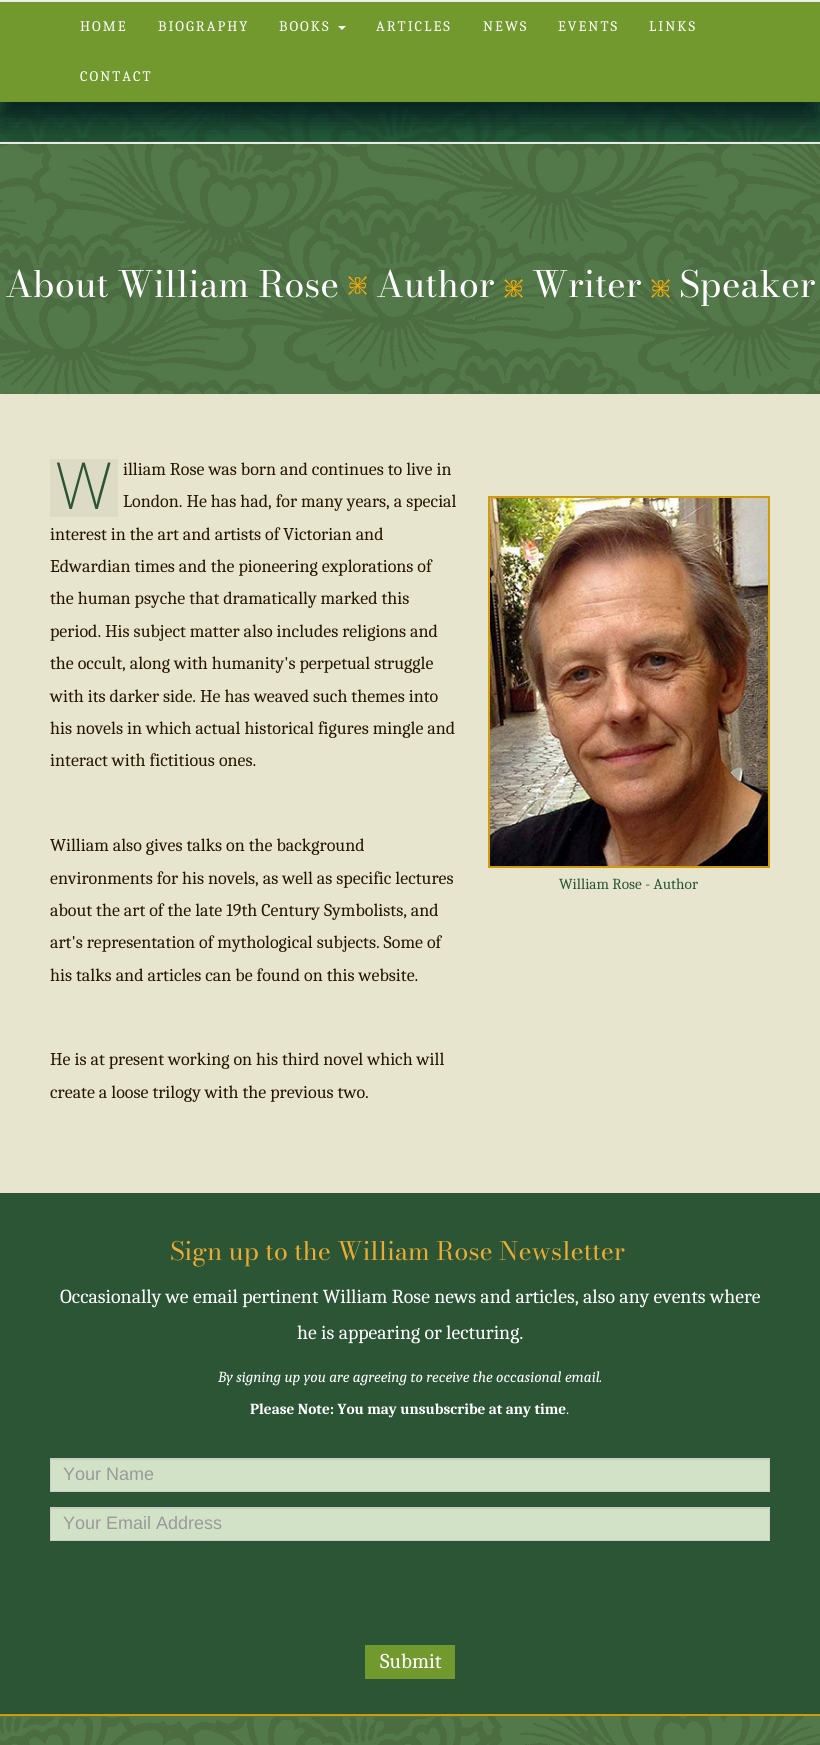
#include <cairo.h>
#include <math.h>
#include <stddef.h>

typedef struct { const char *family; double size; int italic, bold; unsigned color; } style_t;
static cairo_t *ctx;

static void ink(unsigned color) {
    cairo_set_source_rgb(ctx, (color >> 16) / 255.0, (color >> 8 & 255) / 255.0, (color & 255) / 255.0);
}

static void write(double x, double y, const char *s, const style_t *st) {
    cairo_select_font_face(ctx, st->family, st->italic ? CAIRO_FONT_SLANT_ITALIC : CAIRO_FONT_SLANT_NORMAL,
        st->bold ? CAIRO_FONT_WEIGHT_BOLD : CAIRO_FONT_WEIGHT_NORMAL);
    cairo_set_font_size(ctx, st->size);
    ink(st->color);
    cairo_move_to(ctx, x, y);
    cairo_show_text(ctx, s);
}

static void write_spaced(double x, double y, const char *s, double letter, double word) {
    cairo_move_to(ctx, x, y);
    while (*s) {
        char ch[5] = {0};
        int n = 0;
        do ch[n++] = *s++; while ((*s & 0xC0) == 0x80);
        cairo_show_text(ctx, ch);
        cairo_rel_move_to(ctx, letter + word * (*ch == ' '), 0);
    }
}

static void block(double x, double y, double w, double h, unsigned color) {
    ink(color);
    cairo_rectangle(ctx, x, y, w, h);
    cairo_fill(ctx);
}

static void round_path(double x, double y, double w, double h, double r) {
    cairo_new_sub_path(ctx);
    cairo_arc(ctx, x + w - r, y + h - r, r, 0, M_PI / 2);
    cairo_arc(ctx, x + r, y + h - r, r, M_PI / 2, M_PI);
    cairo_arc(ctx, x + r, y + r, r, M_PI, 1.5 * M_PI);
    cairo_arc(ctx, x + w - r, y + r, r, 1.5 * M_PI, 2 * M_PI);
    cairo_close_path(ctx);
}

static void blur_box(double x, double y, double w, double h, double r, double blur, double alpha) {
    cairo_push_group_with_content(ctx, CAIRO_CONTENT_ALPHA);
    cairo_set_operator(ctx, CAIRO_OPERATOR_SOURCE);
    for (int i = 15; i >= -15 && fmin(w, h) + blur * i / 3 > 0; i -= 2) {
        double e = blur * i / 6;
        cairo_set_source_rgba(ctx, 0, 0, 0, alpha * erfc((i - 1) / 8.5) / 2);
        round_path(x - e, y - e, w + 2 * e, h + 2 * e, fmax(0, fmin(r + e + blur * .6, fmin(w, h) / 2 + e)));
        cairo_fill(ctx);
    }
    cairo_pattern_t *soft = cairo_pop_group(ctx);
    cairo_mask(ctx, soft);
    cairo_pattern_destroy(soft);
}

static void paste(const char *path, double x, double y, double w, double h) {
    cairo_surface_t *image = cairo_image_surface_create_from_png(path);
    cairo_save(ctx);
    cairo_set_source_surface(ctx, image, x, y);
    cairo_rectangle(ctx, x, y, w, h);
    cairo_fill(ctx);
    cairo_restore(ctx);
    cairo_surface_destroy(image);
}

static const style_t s1 = {"Bodoni Moda", 36, 0, 0, 0xffffff};
static const style_t s2 = {"Noto Sans ExtraLight", 65, 0, 0, 0x2c5536};
static const style_t s3 = {"Caladea", 18, 0, 0, 0x271700};
static const style_t s4 = {"Caladea", 15.3, 0, 0, 0x2c5536};
static const style_t s5 = {"Bodoni Moda", 25.25, 0, 0, 0xebac33};
static const style_t s6 = {"Caladea", 19.8, 0, 0, 0xffffff};
static const style_t s7 = {"Caladea", 15.3, 1, 0, 0xffffff};
static const style_t s8 = {"Caladea", 15.3, 0, 1, 0xffffff};
static const style_t s9 = {"Caladea", 15.3, 0, 0, 0xffffff};
static const style_t s10 = {"Liberation Sans", 18, 0, 0, 0x999999};
static const style_t s11 = {"Caladea", 21, 0, 0, 0xffffff};

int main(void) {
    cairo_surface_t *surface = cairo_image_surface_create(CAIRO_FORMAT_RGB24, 820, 1745);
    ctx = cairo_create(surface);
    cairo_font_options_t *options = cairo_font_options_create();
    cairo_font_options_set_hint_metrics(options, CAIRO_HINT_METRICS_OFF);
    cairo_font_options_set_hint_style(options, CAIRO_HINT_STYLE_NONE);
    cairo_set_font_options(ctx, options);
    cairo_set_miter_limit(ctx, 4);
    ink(0xe7e5cd);
    cairo_paint(ctx);
    paste("pic1.png", 0, 102, 820, 40);
    block(0, 142, 820, 2, 0xededed);
    paste("pic2.png", 0, 144, 820, 250);
    ink(0x00161a);
    blur_box(0, 18, 820, 102, 0, 12, 0.8);
    block(0, 2, 820, 100, 0x71992e);
    block(0, 0, 820, 2, 0xededed);
    cairo_select_font_face(ctx, "Caladea", CAIRO_FONT_SLANT_NORMAL, CAIRO_FONT_WEIGHT_NORMAL);
    cairo_set_font_size(ctx, 14.5);
    ink(0xffffff);
    write_spaced(80, 31, "HOME", 2, 0);
    write_spaced(158, 31, "BIOGRAPHY", 2, 0);
    write_spaced(279, 31, "BOOKS", 2, 0);
    cairo_new_path(ctx);
    cairo_move_to(ctx, 338, 26);
    cairo_line_to(ctx, 346, 26);
    cairo_line_to(ctx, 342, 30);
    cairo_close_path(ctx);
    cairo_fill(ctx);
    write_spaced(376, 31, "ARTICLES", 2, 0);
    write_spaced(483, 31, "NEWS", 2, 0);
    write_spaced(558, 31, "EVENTS", 2, 0);
    write_spaced(649, 31, "LINKS", 2, 0);
    write_spaced(80, 81, "CONTACT", 2, 0);
    write(5, 297, "About William Rose", &s1);
    paste("pic3.png", 348, 276, 19, 19);
    write(376, 297, "Author", &s1);
    paste("pic4.png", 504, 279, 19, 19);
    write(532, 297, "Writer", &s1);
    paste("pic5.png", 651, 279, 19, 19);
    write(679, 297, "Speaker", &s1);
    block(50, 459, 68, 58, 0xdddbc4);
    write(55, 509, "W", &s2);
    write(123, 475, "illiam Rose was born and continues to live in", &s3);
    write(123, 507, "London. He has had, for many years, a special", &s3);
    write(50, 540, "interest in the art and artists of Victorian and", &s3);
    write(50, 572, "Edwardian times and the pioneering explorations of", &s3);
    write(50, 604, "the human psyche that dramatically marked this", &s3);
    write(50, 637, "period. His subject matter also includes religions and", &s3);
    write(50, 669, "the occult, along with humanity's perpetual struggle", &s3);
    write(50, 702, "with its darker side. He has weaved such themes into", &s3);
    write(50, 734, "his novels in which actual historical figures mingle and", &s3);
    write(50, 766, "interact with fictitious ones.", &s3);
    write(50, 851, "William also gives talks on the background", &s3);
    write(50, 884, "environments for his novels, as well as specific lectures", &s3);
    write(50, 916, "about the art of the late 19th Century Symbolists, and", &s3);
    write(50, 948, "art's representation of mythological subjects. Some of", &s3);
    write(50, 981, "his talks and articles can be found on this website.", &s3);
    write(50, 1065, "He is at present working on his third novel which will", &s3);
    write(50, 1098, "create a loose trilogy with the previous two.", &s3);
    cairo_rectangle(ctx, 489, 497, 280, 370);
    ink(0xd09b08);
    cairo_stroke(ctx);
    paste("pic6.png", 490, 498, 278, 368);
    write(559, 889, "William Rose - Author", &s4);
    block(0, 1193, 820, 521, 0x2c5536);
    write(170, 1260, "Sign up to the William Rose Newsletter", &s5);
    write(60, 1303, "Occasionally we email pertinent William Rose news and articles, also any events where", &s6);
    write(297, 1339, "he is appearing or lecturing.", &s6);
    write(218, 1382, "By signing up you are agreeing to receive the occasional email.", &s7);
    write(250, 1414, "Please Note: You may unsubscribe at any time", &s8);
    write(566, 1414, ".", &s9);
    block(51, 1460, 718, 31, 0xd2e2c7);
    block(51, 1459, 718, 1, 0xc2d1b8);
    cairo_rectangle(ctx, 50.5, 1458.5, 719, 33);
    ink(0xcccccc);
    cairo_set_line_width(ctx, 1);
    cairo_stroke(ctx);
    write(63, 1480, "Your Name", &s10);
    block(51, 1509, 718, 31, 0xd2e2c7);
    block(51, 1508, 718, 1, 0xc2d1b8);
    cairo_rectangle(ctx, 50.5, 1507.5, 719, 33);
    ink(0xcccccc);
    cairo_stroke(ctx);
    write(63, 1529, "Your Email Address", &s10);
    block(365, 1645, 90, 34, 0x71992e);
    write(380, 1668, "Submit", &s11);
    paste("pic7.png", 0, 1716, 820, 29);
    block(0, 1714, 820, 2, 0xd09b08);
    cairo_surface_write_to_png(surface, "screenshot.png");
    cairo_font_options_destroy(options);
    cairo_destroy(ctx);
    cairo_surface_destroy(surface);
    return 0;
}
